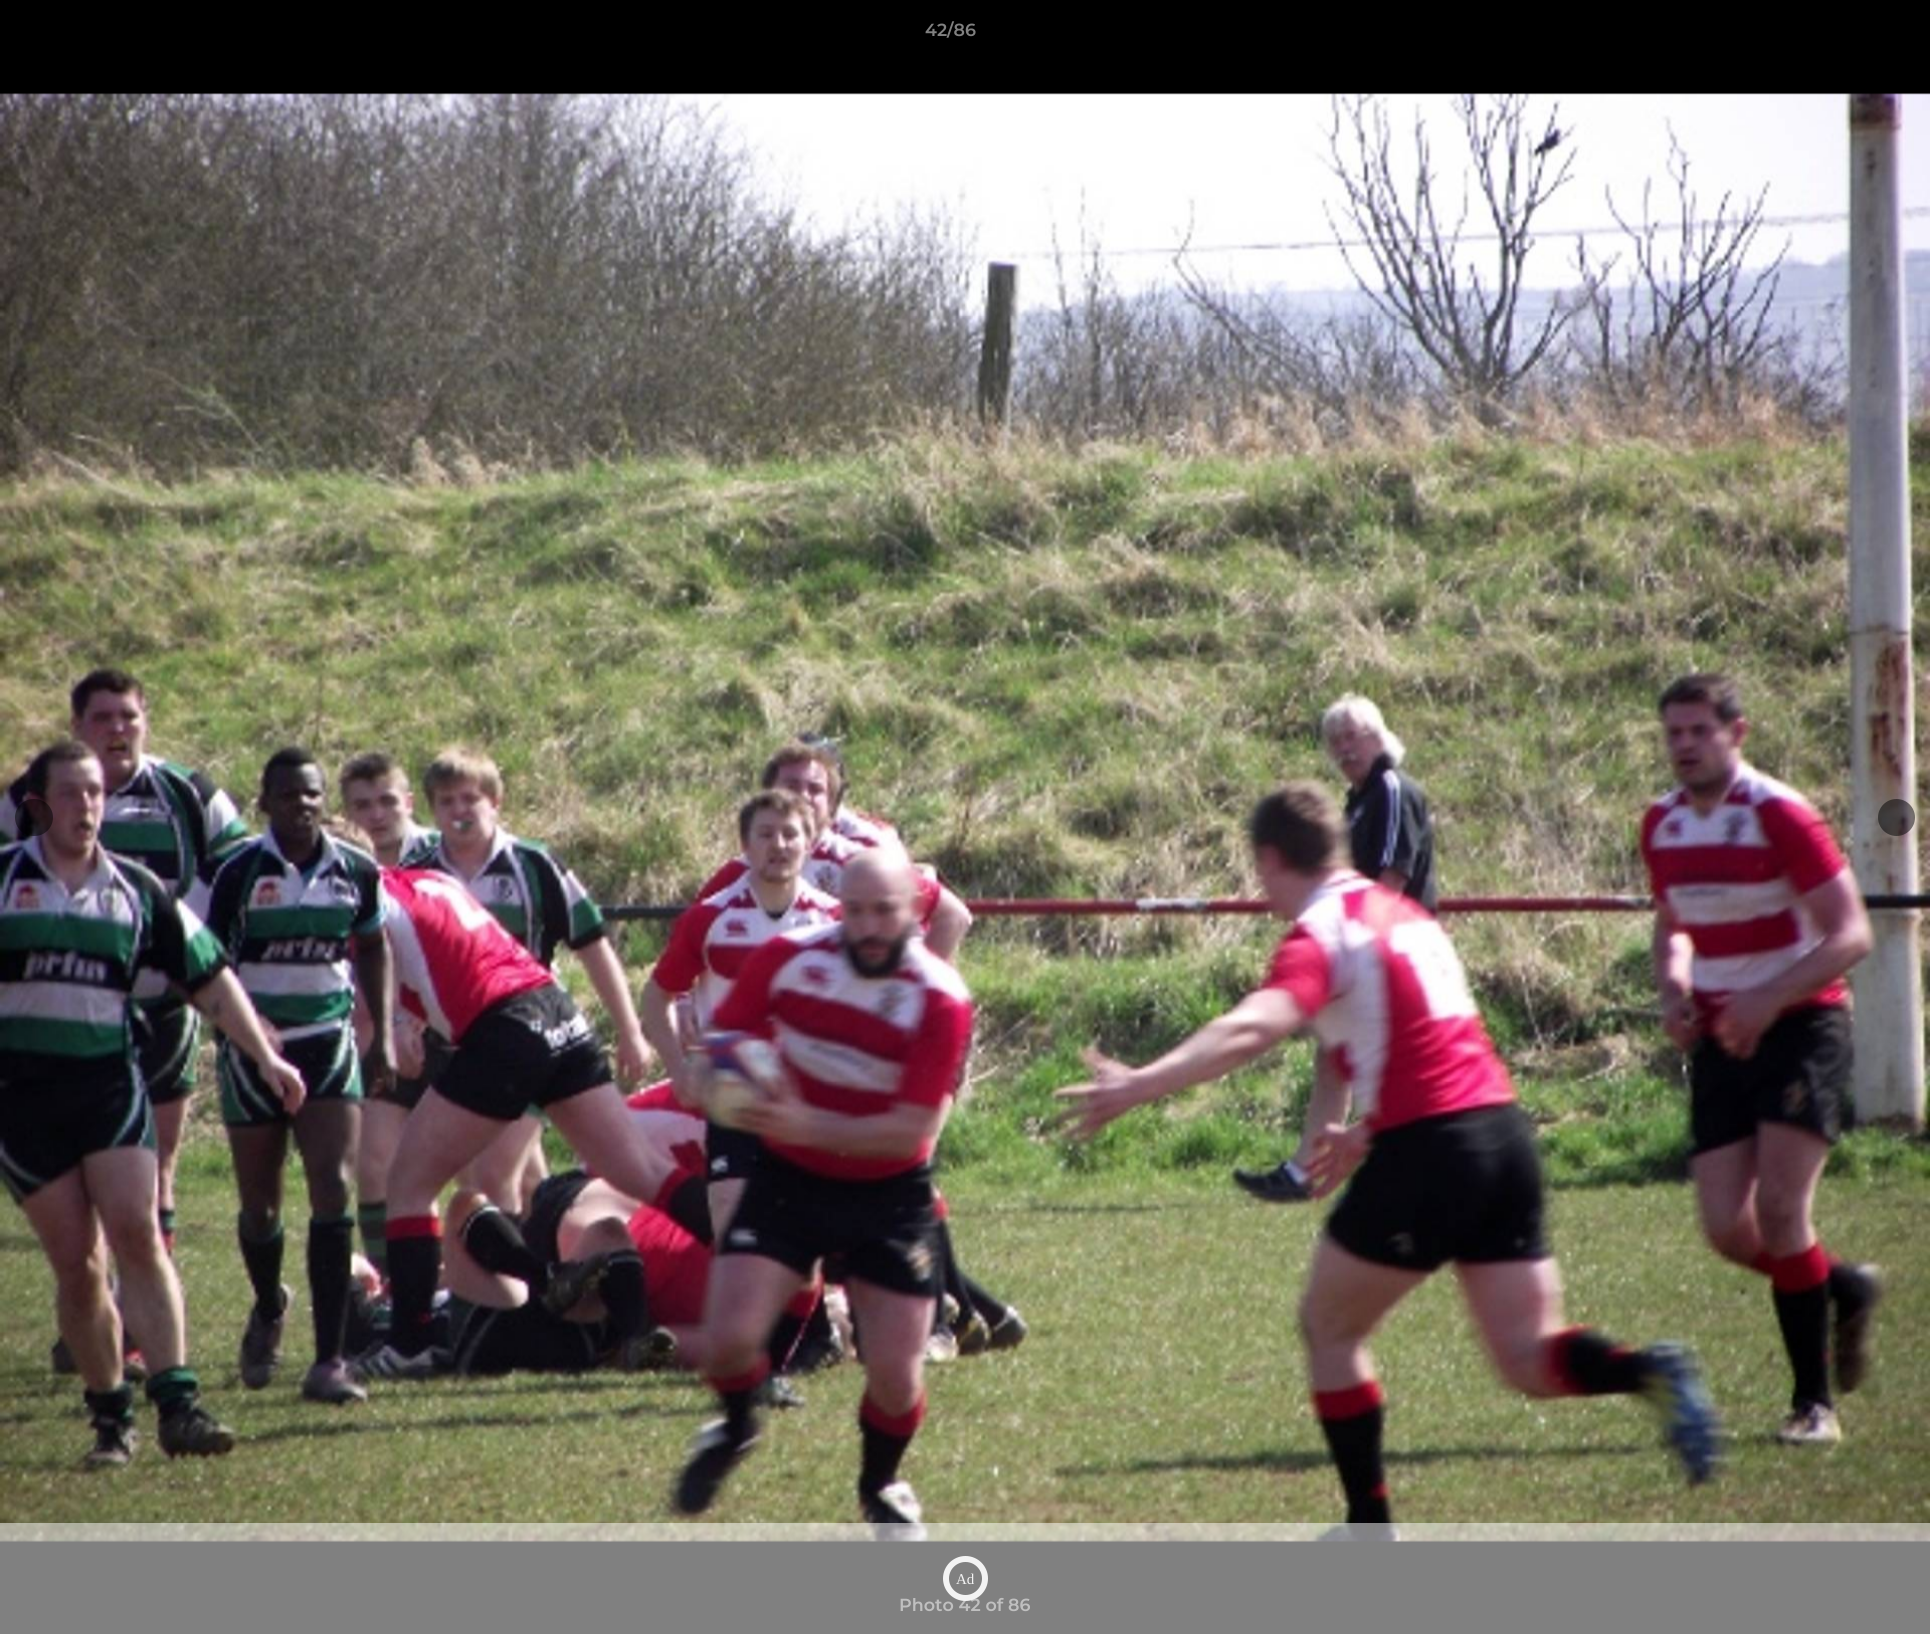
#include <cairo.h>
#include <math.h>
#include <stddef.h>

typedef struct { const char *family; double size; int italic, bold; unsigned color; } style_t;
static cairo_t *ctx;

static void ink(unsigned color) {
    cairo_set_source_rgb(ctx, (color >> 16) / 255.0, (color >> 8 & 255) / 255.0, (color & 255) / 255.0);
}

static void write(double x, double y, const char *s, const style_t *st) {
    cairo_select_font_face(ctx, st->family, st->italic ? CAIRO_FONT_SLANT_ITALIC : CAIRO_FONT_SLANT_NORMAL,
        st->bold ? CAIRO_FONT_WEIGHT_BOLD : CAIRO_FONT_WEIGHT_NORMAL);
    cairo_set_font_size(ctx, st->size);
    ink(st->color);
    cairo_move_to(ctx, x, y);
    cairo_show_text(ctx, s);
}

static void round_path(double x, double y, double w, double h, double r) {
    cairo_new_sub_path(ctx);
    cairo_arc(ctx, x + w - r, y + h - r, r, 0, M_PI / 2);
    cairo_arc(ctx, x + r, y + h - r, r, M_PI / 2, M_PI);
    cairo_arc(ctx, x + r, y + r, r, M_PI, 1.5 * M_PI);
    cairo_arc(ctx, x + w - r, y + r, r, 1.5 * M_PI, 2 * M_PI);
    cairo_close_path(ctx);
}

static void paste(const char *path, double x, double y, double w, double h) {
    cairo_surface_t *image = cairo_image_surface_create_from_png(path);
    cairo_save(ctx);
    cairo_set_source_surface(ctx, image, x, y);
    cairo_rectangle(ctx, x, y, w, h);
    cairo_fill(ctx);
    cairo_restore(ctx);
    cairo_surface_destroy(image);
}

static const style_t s1 = {"Montserrat SemiBold", 17.5, 0, 0, 0x808080};
static const style_t s2 = {"Liberation Serif", 15, 0, 0, 0xf3f3f3};

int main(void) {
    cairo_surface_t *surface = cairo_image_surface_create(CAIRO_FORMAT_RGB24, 1930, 1634);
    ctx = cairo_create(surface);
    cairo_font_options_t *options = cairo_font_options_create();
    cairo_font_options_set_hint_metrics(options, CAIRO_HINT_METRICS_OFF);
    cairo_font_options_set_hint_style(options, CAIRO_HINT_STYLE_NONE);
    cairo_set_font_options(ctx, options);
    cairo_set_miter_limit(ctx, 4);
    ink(0x000000);
    cairo_paint(ctx);
    write(925, 36, "42/86", &s1);
    paste("pic1.png", 0, 93, 1930, 1449);
    cairo_set_source_rgba(ctx, 0, 0, 0, 0.5);
    round_path(15, 799, 38, 37, 18.5);
    cairo_fill(ctx);
    cairo_arc(ctx, 1896.5, 817.5, 18.5, 0, 2 * M_PI);
    cairo_fill(ctx);
    write(899, 1611, "Photo 42 of 86", &s1);
    cairo_set_source_rgba(ctx, 1, 1, 1, 0.5);
    cairo_rectangle(ctx, 0, 1523, 1930, 111);
    cairo_fill(ctx);
    cairo_arc(ctx, 965.5, 1578.5, 19.5, 0, 2 * M_PI);
    ink(0xf3f3f3);
    cairo_set_line_width(ctx, 6);
    cairo_stroke(ctx);
    write(956, 1584, "Ad", &s2);
    cairo_surface_write_to_png(surface, "screenshot.png");
    cairo_font_options_destroy(options);
    cairo_destroy(ctx);
    cairo_surface_destroy(surface);
    return 0;
}
